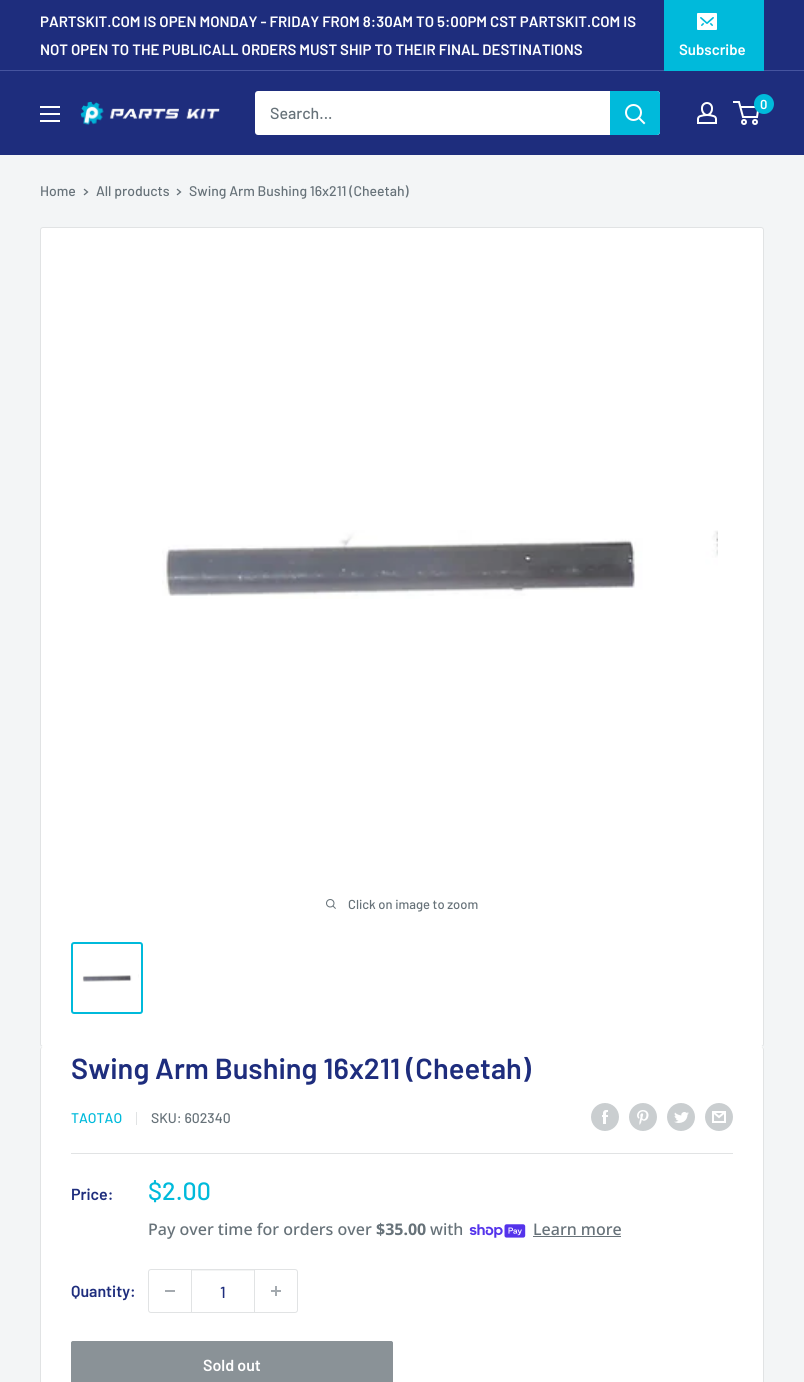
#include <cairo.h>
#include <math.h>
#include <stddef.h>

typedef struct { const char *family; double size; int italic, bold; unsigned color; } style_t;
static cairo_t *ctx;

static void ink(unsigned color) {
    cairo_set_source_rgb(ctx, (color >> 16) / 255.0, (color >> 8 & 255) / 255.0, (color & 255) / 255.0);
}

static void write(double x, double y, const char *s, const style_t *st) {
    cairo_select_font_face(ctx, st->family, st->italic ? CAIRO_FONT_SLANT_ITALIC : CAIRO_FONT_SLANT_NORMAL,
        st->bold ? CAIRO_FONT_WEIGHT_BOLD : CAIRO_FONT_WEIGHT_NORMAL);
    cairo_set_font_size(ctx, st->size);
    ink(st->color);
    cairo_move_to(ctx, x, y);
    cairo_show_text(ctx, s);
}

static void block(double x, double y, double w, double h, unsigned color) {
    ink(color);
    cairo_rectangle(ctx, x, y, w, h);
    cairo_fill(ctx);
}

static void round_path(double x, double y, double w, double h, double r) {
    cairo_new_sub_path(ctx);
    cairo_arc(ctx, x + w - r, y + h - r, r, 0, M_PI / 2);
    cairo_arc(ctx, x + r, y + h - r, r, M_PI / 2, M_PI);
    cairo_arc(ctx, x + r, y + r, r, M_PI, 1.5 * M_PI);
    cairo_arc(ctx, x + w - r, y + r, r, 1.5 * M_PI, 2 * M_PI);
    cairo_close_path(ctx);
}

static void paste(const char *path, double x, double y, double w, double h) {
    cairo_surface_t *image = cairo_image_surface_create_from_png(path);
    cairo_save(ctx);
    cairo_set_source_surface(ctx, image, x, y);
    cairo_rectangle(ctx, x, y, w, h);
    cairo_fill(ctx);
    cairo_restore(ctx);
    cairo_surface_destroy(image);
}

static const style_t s1 = {"Barlow SemiBold", 15, 0, 0, 0xffffff};
static const style_t s2 = {"Barlow Medium", 16, 0, 0, 0x677279};
static const style_t s3 = {"Barlow SemiBold", 13, 0, 0, 0xffffff};
static const style_t s4 = {"Barlow Medium", 14, 0, 0, 0x677279};
static const style_t s5 = {"Barlow Medium", 13, 0, 0, 0x677279};
static const style_t s6 = {"Barlow SemiBold", 29, 0, 0, 0x1e2d7d};
static const style_t s7 = {"Barlow Medium", 14, 0, 0, 0x00badb};
static const style_t s8 = {"Barlow SemiBold", 16, 0, 0, 0x1e2d7d};
static const style_t s9 = {"Barlow Medium", 25, 0, 0, 0x00badb};
static const style_t s10 = {"Noto Sans Medium", 16, 0, 0, 0x677279};
static const style_t s11 = {"Noto Sans", 16, 0, 1, 0x677279};
static const style_t s12 = {"Barlow Medium", 16, 0, 0, 0x1e2d7d};
static const style_t s13 = {"Barlow SemiBold", 16, 0, 0, 0xffffff};

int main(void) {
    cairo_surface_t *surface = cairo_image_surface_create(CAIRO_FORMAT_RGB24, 804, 1382);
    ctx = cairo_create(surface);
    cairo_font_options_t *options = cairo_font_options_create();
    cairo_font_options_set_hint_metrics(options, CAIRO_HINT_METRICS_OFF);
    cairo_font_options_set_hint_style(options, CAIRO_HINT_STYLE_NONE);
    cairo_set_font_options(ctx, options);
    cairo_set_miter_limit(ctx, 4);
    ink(0xf3f5f6);
    cairo_paint(ctx);
    block(0, 0, 804, 70, 0x1e2d7d);
    block(0, 70, 804, 1, 0x46549f);
    write(40, 27, "PARTSKIT.COM IS OPEN MONDAY - FRIDAY FROM 8:30AM TO 5:00PM CST PARTSKIT.COM IS", &s1);
    write(40, 55, "NOT OPEN TO THE PUBLICALL ORDERS MUST SHIP TO THEIR FINAL DESTINATIONS", &s1);
    block(664, 0, 100, 71, 0x00badb);
    paste("pic1.png", 697, 13, 20, 17);
    write(679, 55, "Subscribe", &s1);
    block(0, 71, 804, 84, 0x1e2d7d);
    paste("pic2.png", 40, 106, 20, 16);
    paste("pic3.png", 80, 101, 140, 24);
    ink(0xffffff);
    round_path(255, 91, 405, 44, 3);
    cairo_fill(ctx);
    write(270, 119, "Search...", &s2);
    ink(0x00badb);
    cairo_new_path(ctx);
    cairo_move_to(ctx, 610, 91);
    cairo_line_to(ctx, 657, 91);
    cairo_curve_to(ctx, 658.5, 91, 660, 92.5, 660, 94);
    cairo_line_to(ctx, 660, 132);
    cairo_curve_to(ctx, 660, 133.5, 658.5, 135, 657, 135);
    cairo_line_to(ctx, 610, 135);
    cairo_close_path(ctx);
    cairo_fill(ctx);
    cairo_new_path(ctx);
    cairo_move_to(ctx, 644, 123);
    cairo_line_to(ctx, 639, 118);
    ink(0xffffff);
    cairo_set_line_cap(ctx, CAIRO_LINE_CAP_SQUARE);
    cairo_stroke(ctx);
    cairo_arc(ctx, 633.5, 112.5, 7.5, 0, 2 * M_PI);
    cairo_set_line_cap(ctx, CAIRO_LINE_CAP_BUTT);
    cairo_stroke(ctx);
    paste("pic4.png", 697, 102, 20, 22);
    cairo_arc(ctx, 744, 122, 2, 0, 2 * M_PI);
    cairo_stroke(ctx);
    cairo_arc(ctx, 755, 122, 2, 0, 2 * M_PI);
    cairo_stroke(ctx);
    cairo_new_path(ctx);
    cairo_move_to(ctx, 740.5, 107);
    cairo_line_to(ctx, 758.5, 107);
    cairo_line_to(ctx, 757, 117);
    cairo_line_to(ctx, 743, 117);
    cairo_line_to(ctx, 739, 102);
    cairo_line_to(ctx, 733, 102);
    cairo_stroke(ctx);
    ink(0x00badb);
    cairo_arc(ctx, 764, 104, 10, 0, 2 * M_PI);
    cairo_fill(ctx);
    write(760, 109, "0", &s3);
    write(40, 196, "Home", &s4);
    cairo_new_path(ctx);
    cairo_move_to(ctx, 84.5, 189.5);
    cairo_line_to(ctx, 87.5, 192);
    cairo_line_to(ctx, 84.5, 194.5);
    cairo_set_line_width(ctx, 1.3);
    cairo_set_line_cap(ctx, CAIRO_LINE_CAP_SQUARE);
    cairo_stroke(ctx);
    write(96, 196, "All products", &s4);
    cairo_new_path(ctx);
    cairo_move_to(ctx, 177.5, 189.5);
    cairo_line_to(ctx, 180.5, 192);
    cairo_line_to(ctx, 177.5, 194.5);
    cairo_stroke(ctx);
    write(189, 196, "Swing Arm Bushing 16x211 (Cheetah)", &s4);
    ink(0xffffff);
    round_path(40.5, 227.5, 723, 819, 2.5);
    cairo_fill_preserve(ctx);
    ink(0xe1e3e4);
    cairo_set_line_width(ctx, 1);
    cairo_set_line_cap(ctx, CAIRO_LINE_CAP_BUTT);
    cairo_stroke(ctx);
    paste("pic5.png", 162, 530, 556, 69);
    paste("pic6.png", 326, 899, 10, 10);
    write(348, 909, "Click on image to zoom", &s5);
    round_path(72, 943, 70, 70, 2);
    ink(0x00badb);
    cairo_set_line_width(ctx, 2);
    cairo_stroke(ctx);
    paste("pic7.png", 82, 974, 57, 8);
    ink(0xffffff);
    cairo_new_path(ctx);
    cairo_move_to(ctx, 43, 1046);
    cairo_curve_to(ctx, 41, 1046, 40, 1048, 40, 1050);
    cairo_curve_to(ctx, 40, 1048, 41, 1047, 43, 1047);
    cairo_line_to(ctx, 761, 1047);
    cairo_curve_to(ctx, 763, 1047, 764, 1048, 764, 1050);
    cairo_curve_to(ctx, 764, 1048, 763, 1046, 761, 1046);
    cairo_close_path(ctx);
    cairo_fill(ctx);
    round_path(40, 1047, 724, 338, 3);
    cairo_fill(ctx);
    ink(0xe1e3e4);
    cairo_set_fill_rule(ctx, CAIRO_FILL_RULE_EVEN_ODD);
    cairo_new_path(ctx);
    cairo_move_to(ctx, 43, 1047);
    cairo_line_to(ctx, 761, 1047);
    cairo_curve_to(ctx, 763, 1047, 764, 1048, 764, 1050);
    cairo_line_to(ctx, 764, 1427);
    cairo_curve_to(ctx, 764, 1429, 763, 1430, 761, 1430);
    cairo_line_to(ctx, 43, 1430);
    cairo_curve_to(ctx, 41, 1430, 40, 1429, 40, 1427);
    cairo_line_to(ctx, 40, 1050);
    cairo_curve_to(ctx, 40, 1048, 41, 1047, 43, 1047);
    cairo_close_path(ctx);
    cairo_move_to(ctx, 43, 1047);
    cairo_line_to(ctx, 761, 1047);
    cairo_curve_to(ctx, 762, 1047, 763, 1048, 763, 1050);
    cairo_line_to(ctx, 763, 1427);
    cairo_curve_to(ctx, 763, 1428, 762, 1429, 761, 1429);
    cairo_line_to(ctx, 43, 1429);
    cairo_curve_to(ctx, 42, 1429, 41, 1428, 41, 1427);
    cairo_line_to(ctx, 41, 1050);
    cairo_curve_to(ctx, 41, 1048, 42, 1047, 43, 1047);
    cairo_close_path(ctx);
    cairo_fill(ctx);
    write(71, 1079, "Swing Arm Bushing 16x211 (Cheetah)", &s6);
    write(71, 1123, "TAOTAO", &s7);
    block(136, 1112, 1, 13, 0xe1e3e4);
    write(151, 1123, "SKU: 602340", &s4);
    paste("pic8.png", 591, 1103, 28, 28);
    paste("pic9.png", 629, 1103, 28, 28);
    paste("pic10.png", 667, 1103, 28, 28);
    paste("pic11.png", 705, 1103, 28, 28);
    block(71, 1153, 662, 1, 0xe1e3e4);
    write(71, 1200, "Price:", &s8);
    write(148, 1200, "$2.00", &s9);
    write(148, 1235, "Pay over time for orders over", &s10);
    write(376, 1235, "$35.00", &s11);
    write(430, 1235, "with", &s10);
    paste("pic12.png", 469, 1224, 57, 14);
    write(533, 1235, "Learn more", &s10);
    block(533, 1236, 88, 1, 0x677279);
    write(71, 1297, "Quantity:", &s8);
    round_path(148.5, 1269.5, 149, 43, 2.5);
    ink(0xe1e3e4);
    cairo_set_line_width(ctx, 1);
    cairo_stroke(ctx);
    block(165, 1290, 10, 2, 0xa4aaaf);
    block(192, 1270, 62, 1, 0xf3f4f4);
    block(254, 1270, 1, 42, 0xe1e3e4);
    block(191, 1270, 1, 42, 0xe1e3e4);
    write(220, 1298, "1", &s12);
    paste("pic13.png", 271, 1286, 10, 10);
    ink(0x8a9297);
    round_path(71.5, 1341.5, 321, 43, 1.5);
    cairo_fill_preserve(ctx);
    cairo_stroke(ctx);
    write(203, 1371, "Sold out", &s13);
    cairo_surface_write_to_png(surface, "screenshot.png");
    cairo_font_options_destroy(options);
    cairo_destroy(ctx);
    cairo_surface_destroy(surface);
    return 0;
}
